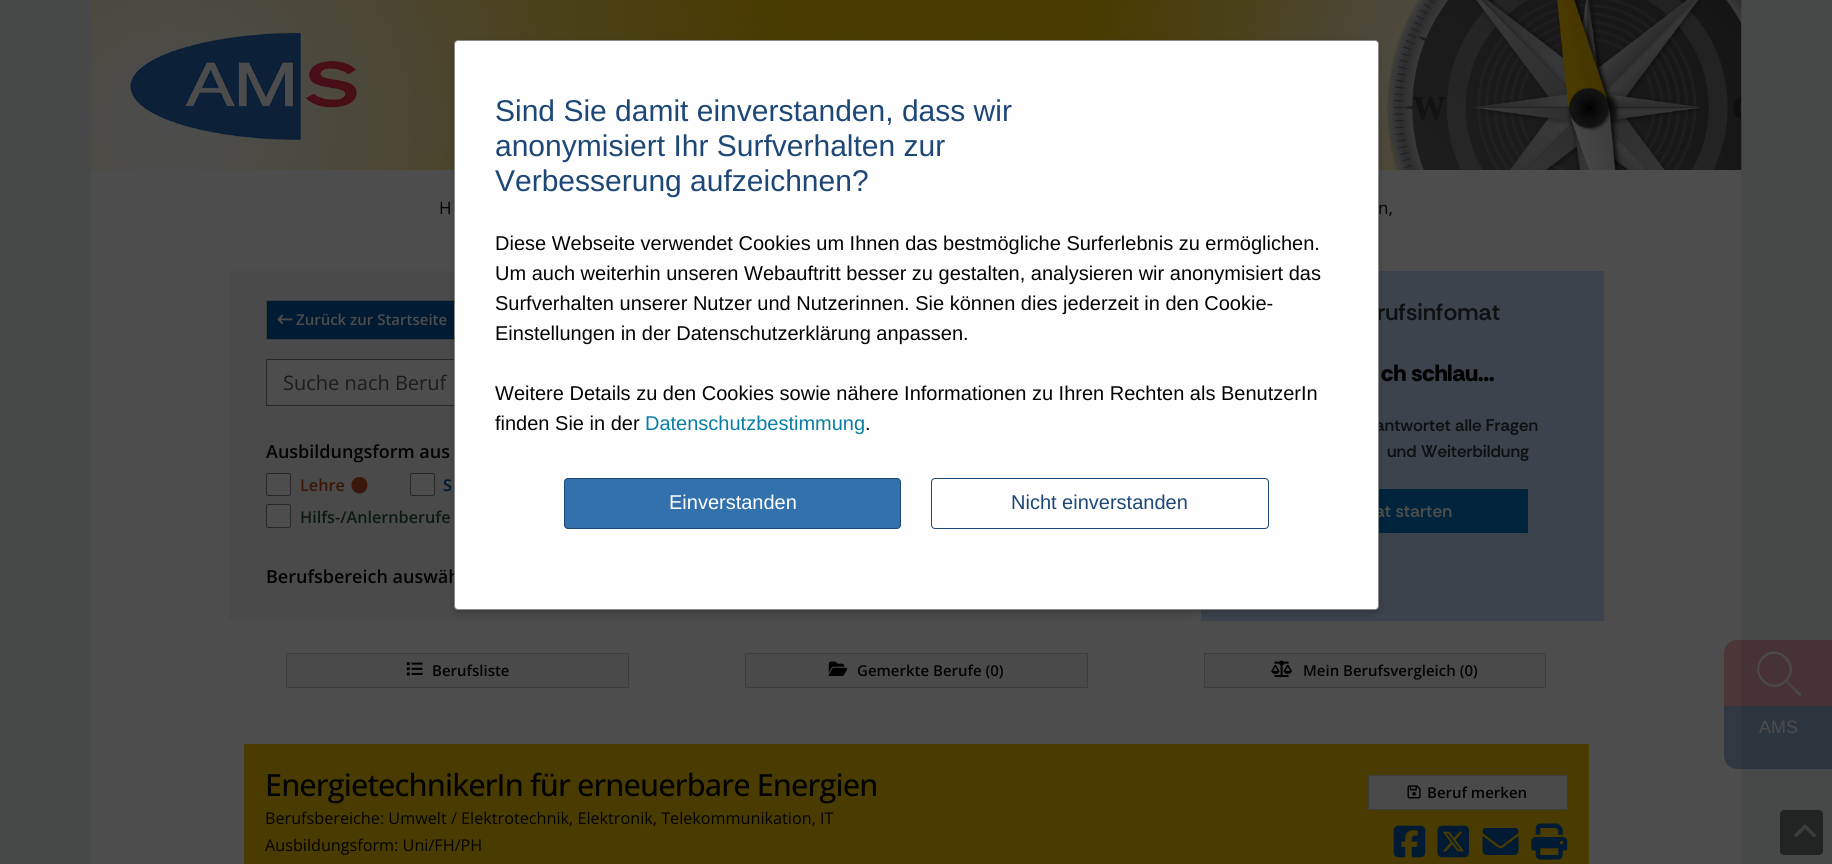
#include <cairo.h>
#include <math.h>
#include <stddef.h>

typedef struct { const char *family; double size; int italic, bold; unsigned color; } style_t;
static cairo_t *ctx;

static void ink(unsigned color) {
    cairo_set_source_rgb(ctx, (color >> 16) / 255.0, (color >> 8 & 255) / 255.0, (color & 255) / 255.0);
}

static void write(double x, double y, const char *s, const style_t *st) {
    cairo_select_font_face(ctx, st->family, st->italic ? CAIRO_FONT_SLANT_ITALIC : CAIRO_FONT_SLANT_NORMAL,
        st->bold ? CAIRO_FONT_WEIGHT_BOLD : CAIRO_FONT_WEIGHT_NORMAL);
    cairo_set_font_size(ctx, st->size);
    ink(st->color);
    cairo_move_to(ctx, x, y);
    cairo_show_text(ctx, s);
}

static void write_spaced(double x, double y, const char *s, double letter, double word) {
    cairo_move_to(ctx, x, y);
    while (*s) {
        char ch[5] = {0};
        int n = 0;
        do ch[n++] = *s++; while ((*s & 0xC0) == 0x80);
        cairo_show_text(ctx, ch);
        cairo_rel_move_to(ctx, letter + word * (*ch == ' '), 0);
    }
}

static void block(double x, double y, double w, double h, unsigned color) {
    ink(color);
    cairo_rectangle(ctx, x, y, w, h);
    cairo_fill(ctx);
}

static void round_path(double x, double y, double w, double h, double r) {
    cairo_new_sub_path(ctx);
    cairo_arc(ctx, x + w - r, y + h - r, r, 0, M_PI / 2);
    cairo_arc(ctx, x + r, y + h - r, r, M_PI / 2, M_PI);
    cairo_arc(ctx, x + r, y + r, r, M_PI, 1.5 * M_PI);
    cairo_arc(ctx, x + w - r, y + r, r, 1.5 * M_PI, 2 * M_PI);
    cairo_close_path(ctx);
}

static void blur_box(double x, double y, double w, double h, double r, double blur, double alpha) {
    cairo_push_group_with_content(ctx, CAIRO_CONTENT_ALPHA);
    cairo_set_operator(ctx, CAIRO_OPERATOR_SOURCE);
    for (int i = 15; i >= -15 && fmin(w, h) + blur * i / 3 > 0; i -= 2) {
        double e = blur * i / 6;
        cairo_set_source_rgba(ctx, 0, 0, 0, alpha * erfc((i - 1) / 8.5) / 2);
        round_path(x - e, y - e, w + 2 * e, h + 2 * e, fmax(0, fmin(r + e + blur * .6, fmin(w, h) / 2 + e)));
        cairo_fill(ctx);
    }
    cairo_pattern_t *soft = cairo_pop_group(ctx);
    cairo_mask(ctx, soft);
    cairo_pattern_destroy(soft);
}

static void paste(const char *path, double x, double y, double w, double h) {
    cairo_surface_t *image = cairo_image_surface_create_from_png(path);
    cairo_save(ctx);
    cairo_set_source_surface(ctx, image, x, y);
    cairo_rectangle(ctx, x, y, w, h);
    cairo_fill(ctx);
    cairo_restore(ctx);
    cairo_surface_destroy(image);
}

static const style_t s1 = {"Open Sans SemiBold", 18, 0, 0, 0x030303};
static const style_t s2 = {"Rethink Sans Thin", 23.5, 0, 0, 0x0e1011};
static const style_t s3 = {"Rethink Sans Thin", 17, 0, 0, 0x0e1011};
static const style_t s4 = {"Rethink Sans Thin", 17.5, 0, 0, 0x4d4d4d};
static const style_t s5 = {"Liberation Sans", 30, 0, 0, 0x1d4777};
static const style_t s6 = {"Liberation Sans", 20, 0, 0, 0x030303};
static const style_t s7 = {"Liberation Sans", 20, 0, 0, 0x097ea5};
static const style_t s8 = {"Liberation Sans", 20, 0, 0, 0xffffff};
static const style_t s9 = {"Liberation Sans", 20, 0, 0, 0x1d4777};
static const style_t s10 = {"Open Sans", 17, 0, 0, 0x030303};
static const style_t s11 = {"Open Sans SemiBold", 15, 0, 0, 0x4d4d4d};
static const style_t s12 = {"Open Sans", 20, 0, 0, 0x1b1c1d};
static const style_t s13 = {"Open Sans SemiBold", 16.2, 0, 0, 0x3a1708};
static const style_t s14 = {"Open Sans SemiBold", 16.2, 0, 0, 0x00162e};
static const style_t s15 = {"Open Sans SemiBold", 16.2, 0, 0, 0x0c1b11};
static const style_t s16 = {"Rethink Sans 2 Thin", 23.5, 0, 0, 0x030303};
static const style_t s17 = {"Open Sans SemiBold", 15, 0, 0, 0x030303};
static const style_t s18 = {"Open Sans", 16.2, 0, 0, 0x030303};
static const style_t s19 = {"Liberation Sans", 18, 0, 0, 0x4d4d4d};

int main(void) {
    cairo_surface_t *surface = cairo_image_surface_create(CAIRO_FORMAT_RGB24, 1832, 864);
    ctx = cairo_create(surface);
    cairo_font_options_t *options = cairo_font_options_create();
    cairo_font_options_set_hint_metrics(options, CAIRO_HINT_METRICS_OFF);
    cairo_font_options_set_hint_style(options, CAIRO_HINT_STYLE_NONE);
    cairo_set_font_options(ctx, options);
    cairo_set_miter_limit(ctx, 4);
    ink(0x474848);
    cairo_paint(ctx);
    paste("pic1.png", 91, 0, 1651, 170);
    block(91, 170, 1650, 694, 0x4d4d4d);
    block(229, 271, 962, 350, 0x4a4a4a);
    ink(0x001b33);
    round_path(266.5, 300.5, 192, 39, 0.5);
    cairo_fill_preserve(ctx);
    ink(0x3d3d3d);
    cairo_set_line_width(ctx, 1);
    cairo_stroke(ctx);
    block(268, 360, 186, 45, 0x4d4d4d);
    cairo_rectangle(ctx, 266.5, 359.5, 689, 46);
    ink(0x292929);
    cairo_stroke(ctx);
    block(1201, 271, 403, 350, 0x3c434c);
    ink(0x00243b);
    round_path(1278.5, 489.5, 249, 43, 0.5);
    cairo_fill_preserve(ctx);
    cairo_stroke(ctx);
    ink(0x000000);
    blur_box(454, 43, 925, 570, 4, 3, 0.2);
    write(266, 583, "Berufsbereich auswäh", &s1);
    write(1377, 320, "rufsinfomat", &s2);
    write(1375, 431, "antwortet alle Fragen", &s3);
    write(1375, 517, "at starten", &s4);
    ink(0xfefefe);
    round_path(454.5, 40.5, 924, 569, 3.5);
    cairo_fill_preserve(ctx);
    ink(0x888888);
    cairo_stroke(ctx);
    write(495, 121, "Sind Sie damit einverstanden, dass wir", &s5);
    write(495, 156, "anonymisiert Ihr Surfverhalten zur", &s5);
    write(495, 191, "Verbesserung aufzeichnen?", &s5);
    write(495, 250, "Diese Webseite verwendet Cookies um Ihnen das bestmögliche Surferlebnis zu ermöglichen.", &s6);
    write(495, 280, "Um auch weiterhin unseren Webauftritt besser zu gestalten, analysieren wir anonymisiert das", &s6);
    write(495, 310, "Surfverhalten unserer Nutzer und Nutzerinnen. Sie können dies jederzeit in den Cookie-", &s6);
    write(495, 340, "Einstellungen in der Datenschutzerklärung anpassen.", &s6);
    write(495, 400, "Weitere Details zu den Cookies sowie nähere Informationen zu Ihren Rechten als BenutzerIn", &s6);
    write(495, 430, "finden Sie in der", &s6);
    write(645, 430, "Datenschutzbestimmung", &s7);
    write(865, 430, ".", &s6);
    ink(0x3371ad);
    round_path(564.5, 478.5, 336, 50, 3.5);
    cairo_fill_preserve(ctx);
    ink(0x1d4777);
    cairo_stroke(ctx);
    write(669, 509, "Einverstanden", &s8);
    round_path(931.5, 478.5, 337, 50, 3.5);
    ink(0x1d4777);
    cairo_stroke(ctx);
    write(1011, 509, "Nicht einverstanden", &s9);
    write(439, 214, "H", &s10);
    write(1378, 214, "n,", &s10);
    paste("pic2.png", 277, 314, 16, 10);
    write(296, 325, "Zurück zur Startseite", &s11);
    write(283, 390, "Suche nach Beruf", &s12);
    write(266, 458, "Ausbildungsform aus", &s1);
    ink(0x4d4d4d);
    round_path(266.5, 473.5, 24, 22, 2);
    cairo_fill_preserve(ctx);
    ink(0x292929);
    cairo_stroke(ctx);
    write(300, 491, "Lehre", &s13);
    cairo_new_path(ctx);
    cairo_move_to(ctx, 359.5, 493.5);
    cairo_curve_to(ctx, 370, 493, 370, 477, 359.5, 477);
    cairo_curve_to(ctx, 349, 477, 348.5, 493, 359.5, 493.5);
    cairo_close_path(ctx);
    cairo_fill(ctx);
    ink(0x4d4d4d);
    round_path(410.5, 473.5, 24, 22, 2);
    cairo_fill_preserve(ctx);
    ink(0x292929);
    cairo_stroke(ctx);
    write(443, 491, "S", &s14);
    ink(0x4d4d4d);
    round_path(266.5, 504.5, 24, 23, 2);
    cairo_fill_preserve(ctx);
    ink(0x292929);
    cairo_stroke(ctx);
    write(300, 523, "Hilfs-/Anlernberufe", &s15);
    write(1381, 381, "ch schlau...", &s16);
    write(1387, 457, "und Weiterbildung", &s3);
    ink(0x4a4a4a);
    round_path(286.5, 653.5, 342, 34, 0.5);
    cairo_fill_preserve(ctx);
    ink(0x3d3d3d);
    cairo_stroke(ctx);
    paste("pic3.png", 406, 662, 17, 14);
    write(432, 676, "Berufsliste", &s17);
    ink(0x4a4a4a);
    round_path(745.5, 653.5, 342, 34, 0.5);
    cairo_fill_preserve(ctx);
    ink(0x3d3d3d);
    cairo_stroke(ctx);
    paste("pic4.png", 828, 661, 20, 15);
    write(857, 676, "Gemerkte Berufe (0)", &s17);
    ink(0x4a4a4a);
    round_path(1204.5, 653.5, 341, 34, 0.5);
    cairo_fill_preserve(ctx);
    ink(0x3d3d3d);
    cairo_stroke(ctx);
    paste("pic5.png", 1271, 660, 21, 18);
    write(1303, 676, "Mein Berufsvergleich (0)", &s17);
    block(244, 744, 1345, 120, 0x4a3b00);
    cairo_select_font_face(ctx, "Open Sans Medium", CAIRO_FONT_SLANT_NORMAL, CAIRO_FONT_WEIGHT_NORMAL);
    cairo_set_font_size(ctx, 30.6);
    ink(0x030303);
    write_spaced(265, 796, "EnergietechnikerIn für erneuerbare Energien", -0.9, 0);
    write(265, 824, "Berufsbereiche: Umwelt / Elektrotechnik, Elektronik, Telekommunikation, IT", &s18);
    write(265, 851, "Ausbildungsform: Uni/FH/PH", &s18);
    ink(0x4a4a4a);
    round_path(1368.5, 775.5, 199, 34, 0.5);
    cairo_fill_preserve(ctx);
    ink(0x3d3d3d);
    cairo_stroke(ctx);
    paste("pic6.png", 1407, 785, 14, 14);
    write(1427, 798, "Beruf merken", &s17);
    paste("pic7.png", 1393, 825, 33, 33);
    paste("pic8.png", 1437, 825, 32, 33);
    paste("pic9.png", 1482, 828, 37, 27);
    paste("pic10.png", 1531, 823, 37, 37);
    cairo_set_source_rgba(ctx, 0.286, 0.059, 0.086, 0.36);
    cairo_new_path(ctx);
    cairo_move_to(ctx, 1737, 640);
    cairo_line_to(ctx, 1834, 640);
    cairo_line_to(ctx, 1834, 706);
    cairo_line_to(ctx, 1724, 706);
    cairo_line_to(ctx, 1724, 653);
    cairo_curve_to(ctx, 1724, 646, 1730, 640, 1737, 640);
    cairo_close_path(ctx);
    cairo_fill(ctx);
    ink(0x494a4a);
    cairo_new_path(ctx);
    cairo_move_to(ctx, 1801, 694);
    cairo_line_to(ctx, 1787, 681);
    cairo_curve_to(ctx, 1803, 663, 1776, 641, 1762, 657);
    cairo_curve_to(ctx, 1747, 674, 1770, 697, 1786, 682);
    cairo_curve_to(ctx, 1788, 684, 1799, 696, 1800, 696);
    cairo_curve_to(ctx, 1801, 696, 1801, 695, 1801, 694);
    cairo_close_path(ctx);
    cairo_move_to(ctx, 1764, 680);
    cairo_curve_to(ctx, 1749, 665, 1772, 644, 1785, 659);
    cairo_curve_to(ctx, 1799, 674, 1777, 694, 1764, 680);
    cairo_close_path(ctx);
    cairo_fill(ctx);
    cairo_set_source_rgba(ctx, 0, 0.086, 0.188, 0.36);
    cairo_new_path(ctx);
    cairo_move_to(ctx, 1724, 706);
    cairo_line_to(ctx, 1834, 706);
    cairo_line_to(ctx, 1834, 769);
    cairo_line_to(ctx, 1737, 769);
    cairo_curve_to(ctx, 1730, 769, 1724, 763, 1724, 756);
    cairo_close_path(ctx);
    cairo_fill(ctx);
    write(1759, 733, "AMS", &s19);
    ink(0x222323);
    round_path(1780, 810, 43, 45, 4);
    cairo_fill(ctx);
    paste("pic11.png", 1794, 824, 22, 13);
    cairo_surface_write_to_png(surface, "screenshot.png");
    cairo_font_options_destroy(options);
    cairo_destroy(ctx);
    cairo_surface_destroy(surface);
    return 0;
}
